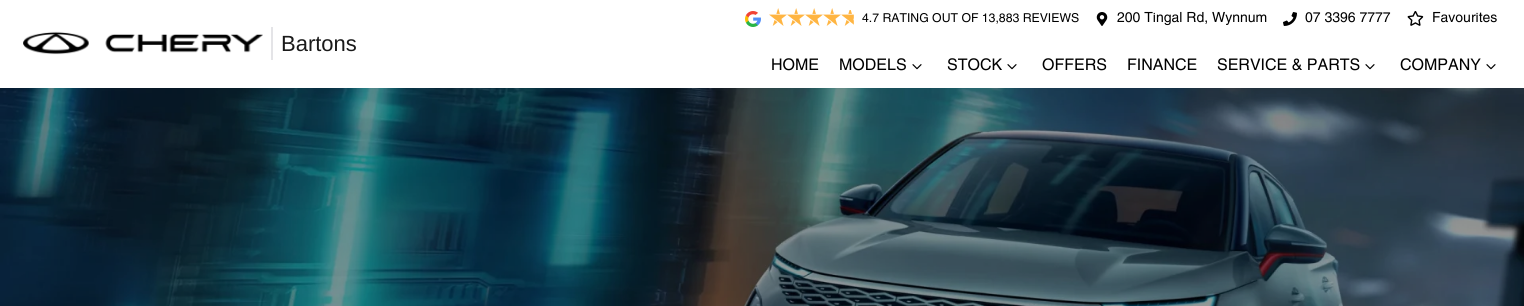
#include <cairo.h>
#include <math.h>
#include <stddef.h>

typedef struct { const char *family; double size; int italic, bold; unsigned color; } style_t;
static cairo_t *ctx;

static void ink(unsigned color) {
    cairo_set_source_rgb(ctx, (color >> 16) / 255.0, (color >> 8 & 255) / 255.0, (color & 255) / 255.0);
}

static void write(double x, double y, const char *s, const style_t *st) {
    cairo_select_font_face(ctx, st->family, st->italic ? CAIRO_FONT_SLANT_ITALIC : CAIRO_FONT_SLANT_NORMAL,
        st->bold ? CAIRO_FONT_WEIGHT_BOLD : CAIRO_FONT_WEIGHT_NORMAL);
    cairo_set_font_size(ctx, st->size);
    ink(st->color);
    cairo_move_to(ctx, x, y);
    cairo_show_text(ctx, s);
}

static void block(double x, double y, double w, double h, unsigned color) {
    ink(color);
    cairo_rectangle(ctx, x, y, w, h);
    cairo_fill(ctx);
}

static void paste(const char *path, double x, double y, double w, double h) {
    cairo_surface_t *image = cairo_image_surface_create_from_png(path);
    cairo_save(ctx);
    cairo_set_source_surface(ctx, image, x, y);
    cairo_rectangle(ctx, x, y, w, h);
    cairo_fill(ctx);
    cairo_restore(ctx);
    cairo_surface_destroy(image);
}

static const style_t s1 = {"Helvetica Medium", 12.25, 0, 0, 0x000000};
static const style_t s2 = {"Helvetica Medium", 14, 0, 0, 0x000000};
static const style_t s3 = {"Liberation Sans", 22, 0, 0, 0x1a1a1a};
static const style_t s4 = {"Helvetica Medium", 16, 0, 0, 0x000000};

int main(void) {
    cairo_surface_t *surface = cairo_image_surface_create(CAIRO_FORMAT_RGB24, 1524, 306);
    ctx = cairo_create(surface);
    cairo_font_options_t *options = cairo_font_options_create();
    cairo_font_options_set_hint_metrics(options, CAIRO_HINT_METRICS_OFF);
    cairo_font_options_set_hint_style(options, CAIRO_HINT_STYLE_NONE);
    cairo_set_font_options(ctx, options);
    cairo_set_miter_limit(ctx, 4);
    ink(0xffffff);
    cairo_paint(ctx);
    paste("pic1.png", 745, 11, 16, 16);
    paste("pic2.png", 769, 8, 18, 18);
    paste("pic2.png", 787, 8, 18, 18);
    paste("pic2.png", 805, 8, 18, 18);
    paste("pic2.png", 823, 8, 18, 18);
    paste("pic3.png", 841, 10, 13, 16);
    write(862, 22, "4.7 RATING OUT OF 13,883 REVIEWS", &s1);
    paste("pic4.png", 1096, 12, 12, 14);
    write(1117, 22, "200 Tingal Rd, Wynnum", &s2);
    paste("pic5.png", 1283, 12, 14, 14);
    write(1305, 22, "07 3396 7777", &s2);
    paste("pic6.png", 1407, 11, 17, 15);
    write(1432, 22, "Favourites", &s2);
    paste("pic7.png", 23, 31, 240, 24);
    block(271, 27, 2, 33, 0xe4e4e7);
    write(281, 51, "Bartons", &s3);
    write(771, 70, "HOME", &s4);
    write(839, 70, "MODELS", &s4);
    paste("pic8.png", 912, 64, 10, 6);
    write(947, 70, "STOCK", &s4);
    paste("pic8.png", 1007, 64, 10, 6);
    write(1042, 70, "OFFERS", &s4);
    write(1127, 70, "FINANCE", &s4);
    write(1217, 70, "SERVICE & PARTS", &s4);
    paste("pic8.png", 1365, 64, 10, 6);
    write(1400, 70, "COMPANY", &s4);
    paste("pic8.png", 1486, 64, 10, 6);
    paste("pic9.png", 0, 88, 1524, 218);
    cairo_surface_write_to_png(surface, "screenshot.png");
    cairo_font_options_destroy(options);
    cairo_destroy(ctx);
    cairo_surface_destroy(surface);
    return 0;
}
